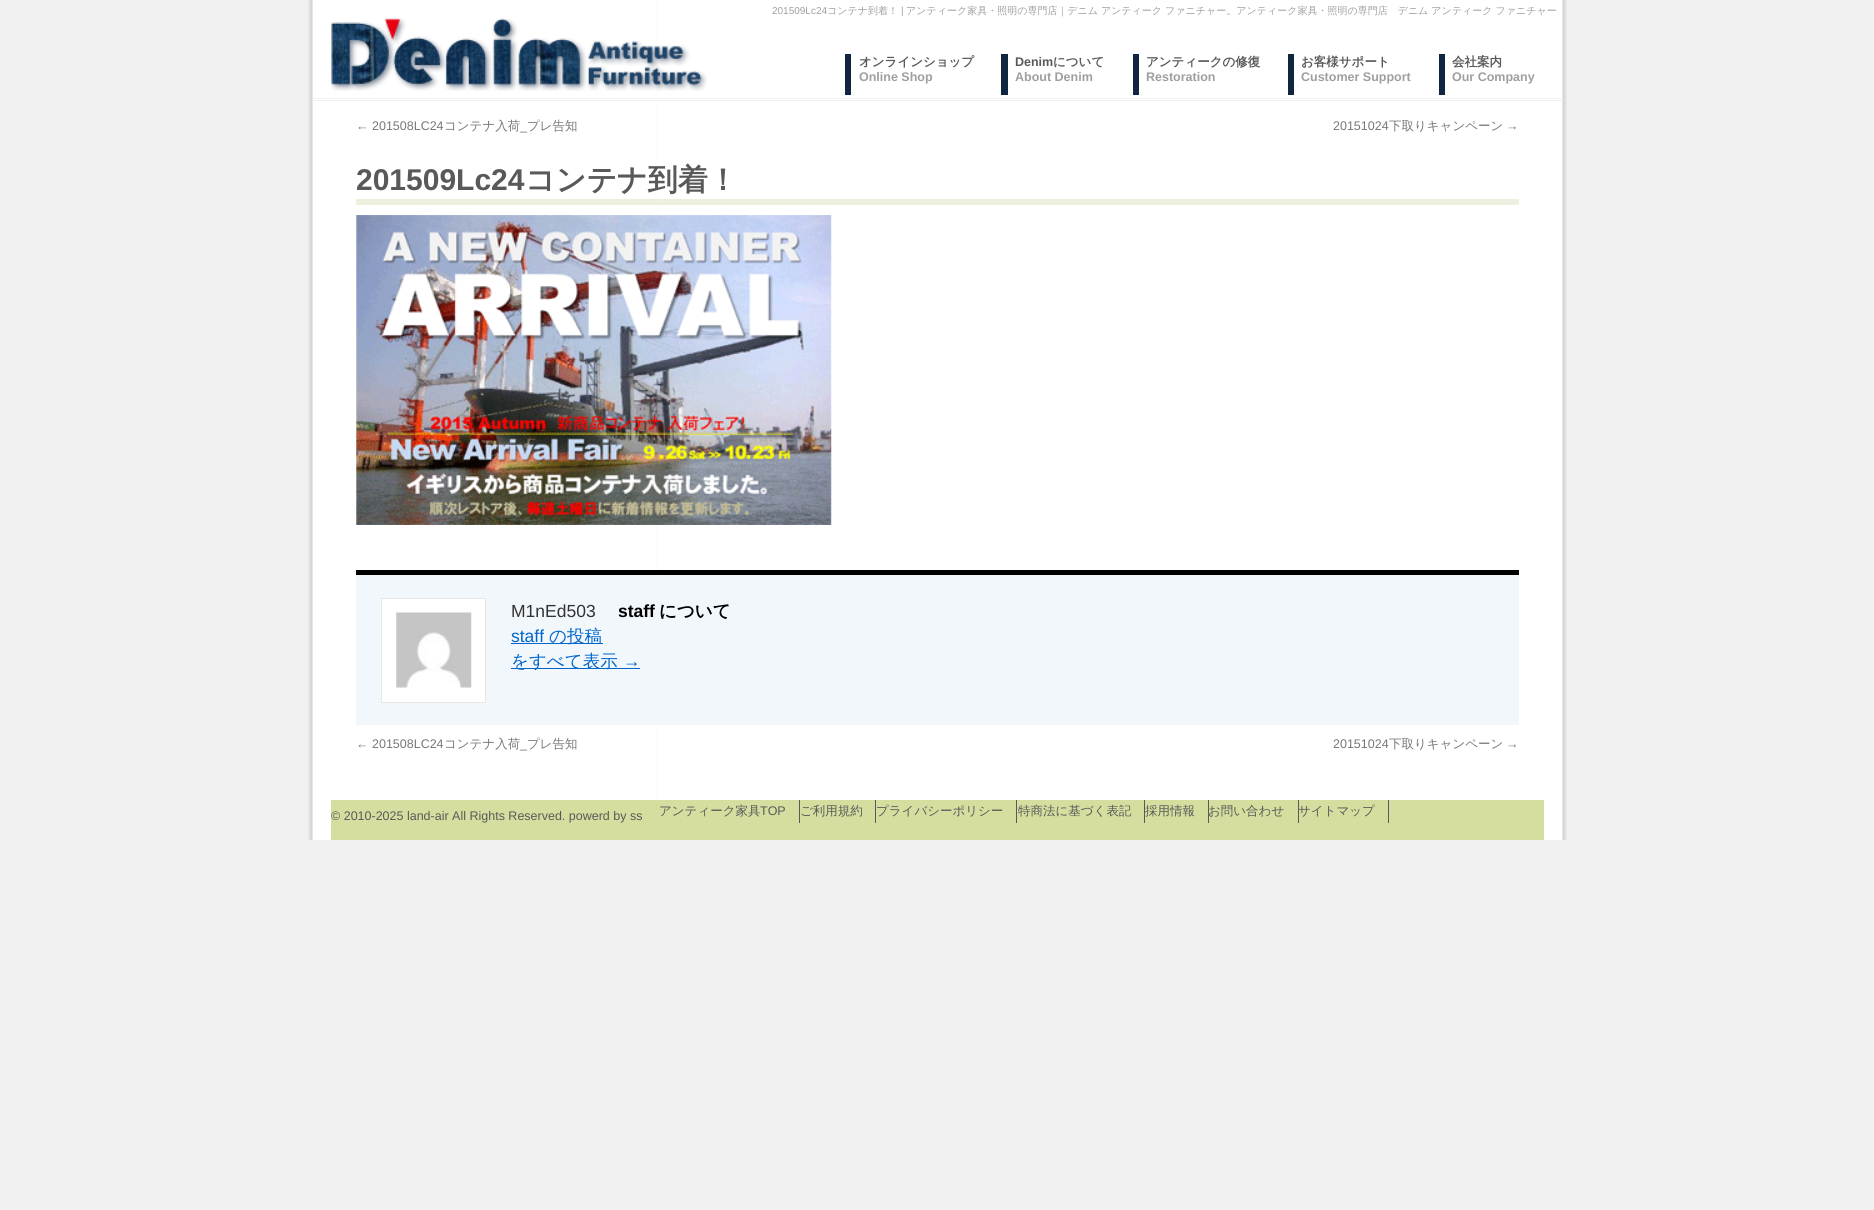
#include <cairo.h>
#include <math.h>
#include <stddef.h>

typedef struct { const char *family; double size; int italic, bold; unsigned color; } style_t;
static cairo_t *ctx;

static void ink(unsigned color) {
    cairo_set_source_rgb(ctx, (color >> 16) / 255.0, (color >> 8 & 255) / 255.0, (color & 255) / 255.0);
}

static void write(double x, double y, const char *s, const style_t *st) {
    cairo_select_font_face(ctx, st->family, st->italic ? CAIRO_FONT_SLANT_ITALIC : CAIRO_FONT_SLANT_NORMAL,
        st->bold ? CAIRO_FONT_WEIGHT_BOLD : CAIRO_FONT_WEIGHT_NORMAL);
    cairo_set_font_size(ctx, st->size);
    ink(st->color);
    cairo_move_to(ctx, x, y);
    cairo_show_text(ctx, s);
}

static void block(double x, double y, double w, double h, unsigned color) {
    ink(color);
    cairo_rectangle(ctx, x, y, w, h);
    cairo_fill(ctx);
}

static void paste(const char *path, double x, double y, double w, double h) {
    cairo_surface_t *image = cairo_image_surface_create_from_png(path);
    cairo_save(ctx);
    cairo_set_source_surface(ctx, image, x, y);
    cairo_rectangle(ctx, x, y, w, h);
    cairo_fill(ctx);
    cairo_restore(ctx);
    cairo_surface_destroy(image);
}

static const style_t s1 = {"Liberation Sans", 10, 0, 0, 0x9f9f9f};
static const style_t s2 = {"WenQuanYi Zen Hei Medium", 10, 0, 0, 0x9f9f9f};
static const style_t s3 = {"WenQuanYi Zen Hei", 12.5, 0, 1, 0x595959};
static const style_t s4 = {"Liberation Sans", 12.5, 0, 1, 0x9f9f9f};
static const style_t s5 = {"Liberation Sans", 12.5, 0, 1, 0x595959};
static const style_t s6 = {"Liberation Sans", 12.5, 0, 0, 0x777777};
static const style_t s7 = {"WenQuanYi Zen Hei Medium", 12.5, 0, 0, 0x777777};
static const style_t s8 = {"Liberation Sans", 30, 0, 1, 0x595959};
static const style_t s9 = {"WenQuanYi Zen Hei", 30, 0, 1, 0x595959};
static const style_t s10 = {"Liberation Sans", 17.5, 0, 0, 0x333333};
static const style_t s11 = {"Liberation Sans", 17.5, 0, 1, 0x000000};
static const style_t s12 = {"WenQuanYi Zen Hei", 17.5, 0, 1, 0x000000};
static const style_t s13 = {"Liberation Sans", 17.5, 0, 0, 0x0066cc};
static const style_t s14 = {"WenQuanYi Zen Hei Medium", 17.5, 0, 0, 0x0066cc};
static const style_t s15 = {"Liberation Sans", 12.5, 0, 0, 0x595959};
static const style_t s16 = {"WenQuanYi Zen Hei Medium", 12.5, 0, 0, 0x595959};

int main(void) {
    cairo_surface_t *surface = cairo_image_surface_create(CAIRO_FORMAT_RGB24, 1874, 1210);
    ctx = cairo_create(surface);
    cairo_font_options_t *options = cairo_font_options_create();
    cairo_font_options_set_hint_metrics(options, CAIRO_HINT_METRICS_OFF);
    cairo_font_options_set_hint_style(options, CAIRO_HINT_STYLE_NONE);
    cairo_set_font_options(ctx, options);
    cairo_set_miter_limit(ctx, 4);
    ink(0xf1f1f1);
    cairo_paint(ctx);
    paste("pic1.png", 308, 0, 1259, 840);
    block(313, 100, 1250, 1, 0xf2f2f2);
    block(313, 98, 1250, 1, 0xf2f2f2);
    write(772, 14, "201509Lc24", &s1);
    write(827, 14, "コンテナ到着！", &s2);
    write(901, 14, "|", &s1);
    write(906, 14, "アンティーク家具・照明の専門店｜デニム アンティーク ファニチャー。アンティーク家具・照明の専門店　デニム アンティーク ファニチャー", &s2);
    paste("pic2.png", 331, 18, 376, 73);
    block(845, 54, 6, 41, 0x10253f);
    write(859, 66, "オンラインショップ", &s3);
    write(859, 81, "Online Shop", &s4);
    block(1001, 54, 7, 41, 0x10253f);
    write(1015, 66, "Denim", &s5);
    write(1053, 66, "について", &s3);
    write(1015, 81, "About Denim", &s4);
    block(1133, 54, 6, 41, 0x10253f);
    write(1146, 66, "アンティークの修復", &s3);
    write(1146, 81, "Restoration", &s4);
    block(1288, 54, 6, 41, 0x10253f);
    write(1301, 66, "お客様サポート", &s3);
    write(1301, 81, "Customer Support", &s4);
    block(1439, 54, 6, 41, 0x10253f);
    write(1452, 66, "会社案内", &s3);
    write(1452, 81, "Our Company", &s4);
    write(356, 130, "← 201508LC24", &s6);
    write(444, 130, "コンテナ入荷", &s7);
    write(527, 130, "プレ告知", &s7);
    write(520, 130, "_", &s6);
    write(1333, 130, "20151024", &s6);
    write(1389, 130, "下取りキャンペーン", &s7);
    write(1506, 130, "→", &s6);
    block(356, 199, 1163, 6, 0xebf1de);
    write(356, 190, "201509Lc24", &s8);
    write(525, 190, "コンテナ到着！", &s9);
    paste("pic3.png", 356, 215, 476, 310);
    block(356, 575, 1163, 150, 0xf2f7fc);
    block(356, 570, 1163, 5, 0x000000);
    ink(0xffffff);
    cairo_rectangle(ctx, 381.5, 598.5, 104, 104);
    cairo_fill_preserve(ctx);
    ink(0xe7e7e7);
    cairo_set_line_width(ctx, 1);
    cairo_stroke(ctx);
    paste("pic4.png", 396, 612, 76, 76);
    write(511, 617, "M1nEd503", &s10);
    write(618, 617, "staff", &s11);
    write(659, 617, "について", &s12);
    write(511, 642, "staff", &s13);
    block(511, 643, 92, 1, 0x0066cc);
    write(549, 642, "の投稿", &s14);
    block(511, 668, 129, 1, 0x0066cc);
    write(511, 667, "をすべて表示", &s14);
    write(623, 667, "→", &s13);
    write(356, 748, "← 201508LC24", &s6);
    write(444, 748, "コンテナ入荷", &s7);
    write(527, 748, "プレ告知", &s7);
    write(520, 748, "_", &s6);
    write(1333, 748, "20151024", &s6);
    write(1389, 748, "下取りキャンペーン", &s7);
    write(1506, 748, "→", &s6);
    block(331, 800, 1213, 40, 0xd5de9e);
    write(331, 820, "© 2010-2025 land-air All Rights Reserved. powerd by ss", &s15);
    block(799, 800, 1, 23, 0x595959);
    write(659, 815, "アンティーク家具", &s16);
    write(760, 815, "TOP", &s15);
    block(875, 800, 1, 23, 0x595959);
    write(800, 815, "ご利用規約", &s16);
    block(1016, 800, 1, 23, 0x595959);
    write(876, 815, "プライバシーポリシー", &s16);
    block(1144, 800, 1, 23, 0x595959);
    write(1018, 815, "特商法に基づく表記", &s16);
    block(1208, 800, 1, 23, 0x595959);
    write(1145, 815, "採用情報", &s16);
    block(1298, 800, 1, 23, 0x595959);
    write(1208, 815, "お問い合わせ", &s16);
    block(1388, 800, 1, 23, 0x595959);
    write(1298, 815, "サイトマップ", &s16);
    cairo_surface_write_to_png(surface, "screenshot.png");
    cairo_font_options_destroy(options);
    cairo_destroy(ctx);
    cairo_surface_destroy(surface);
    return 0;
}
